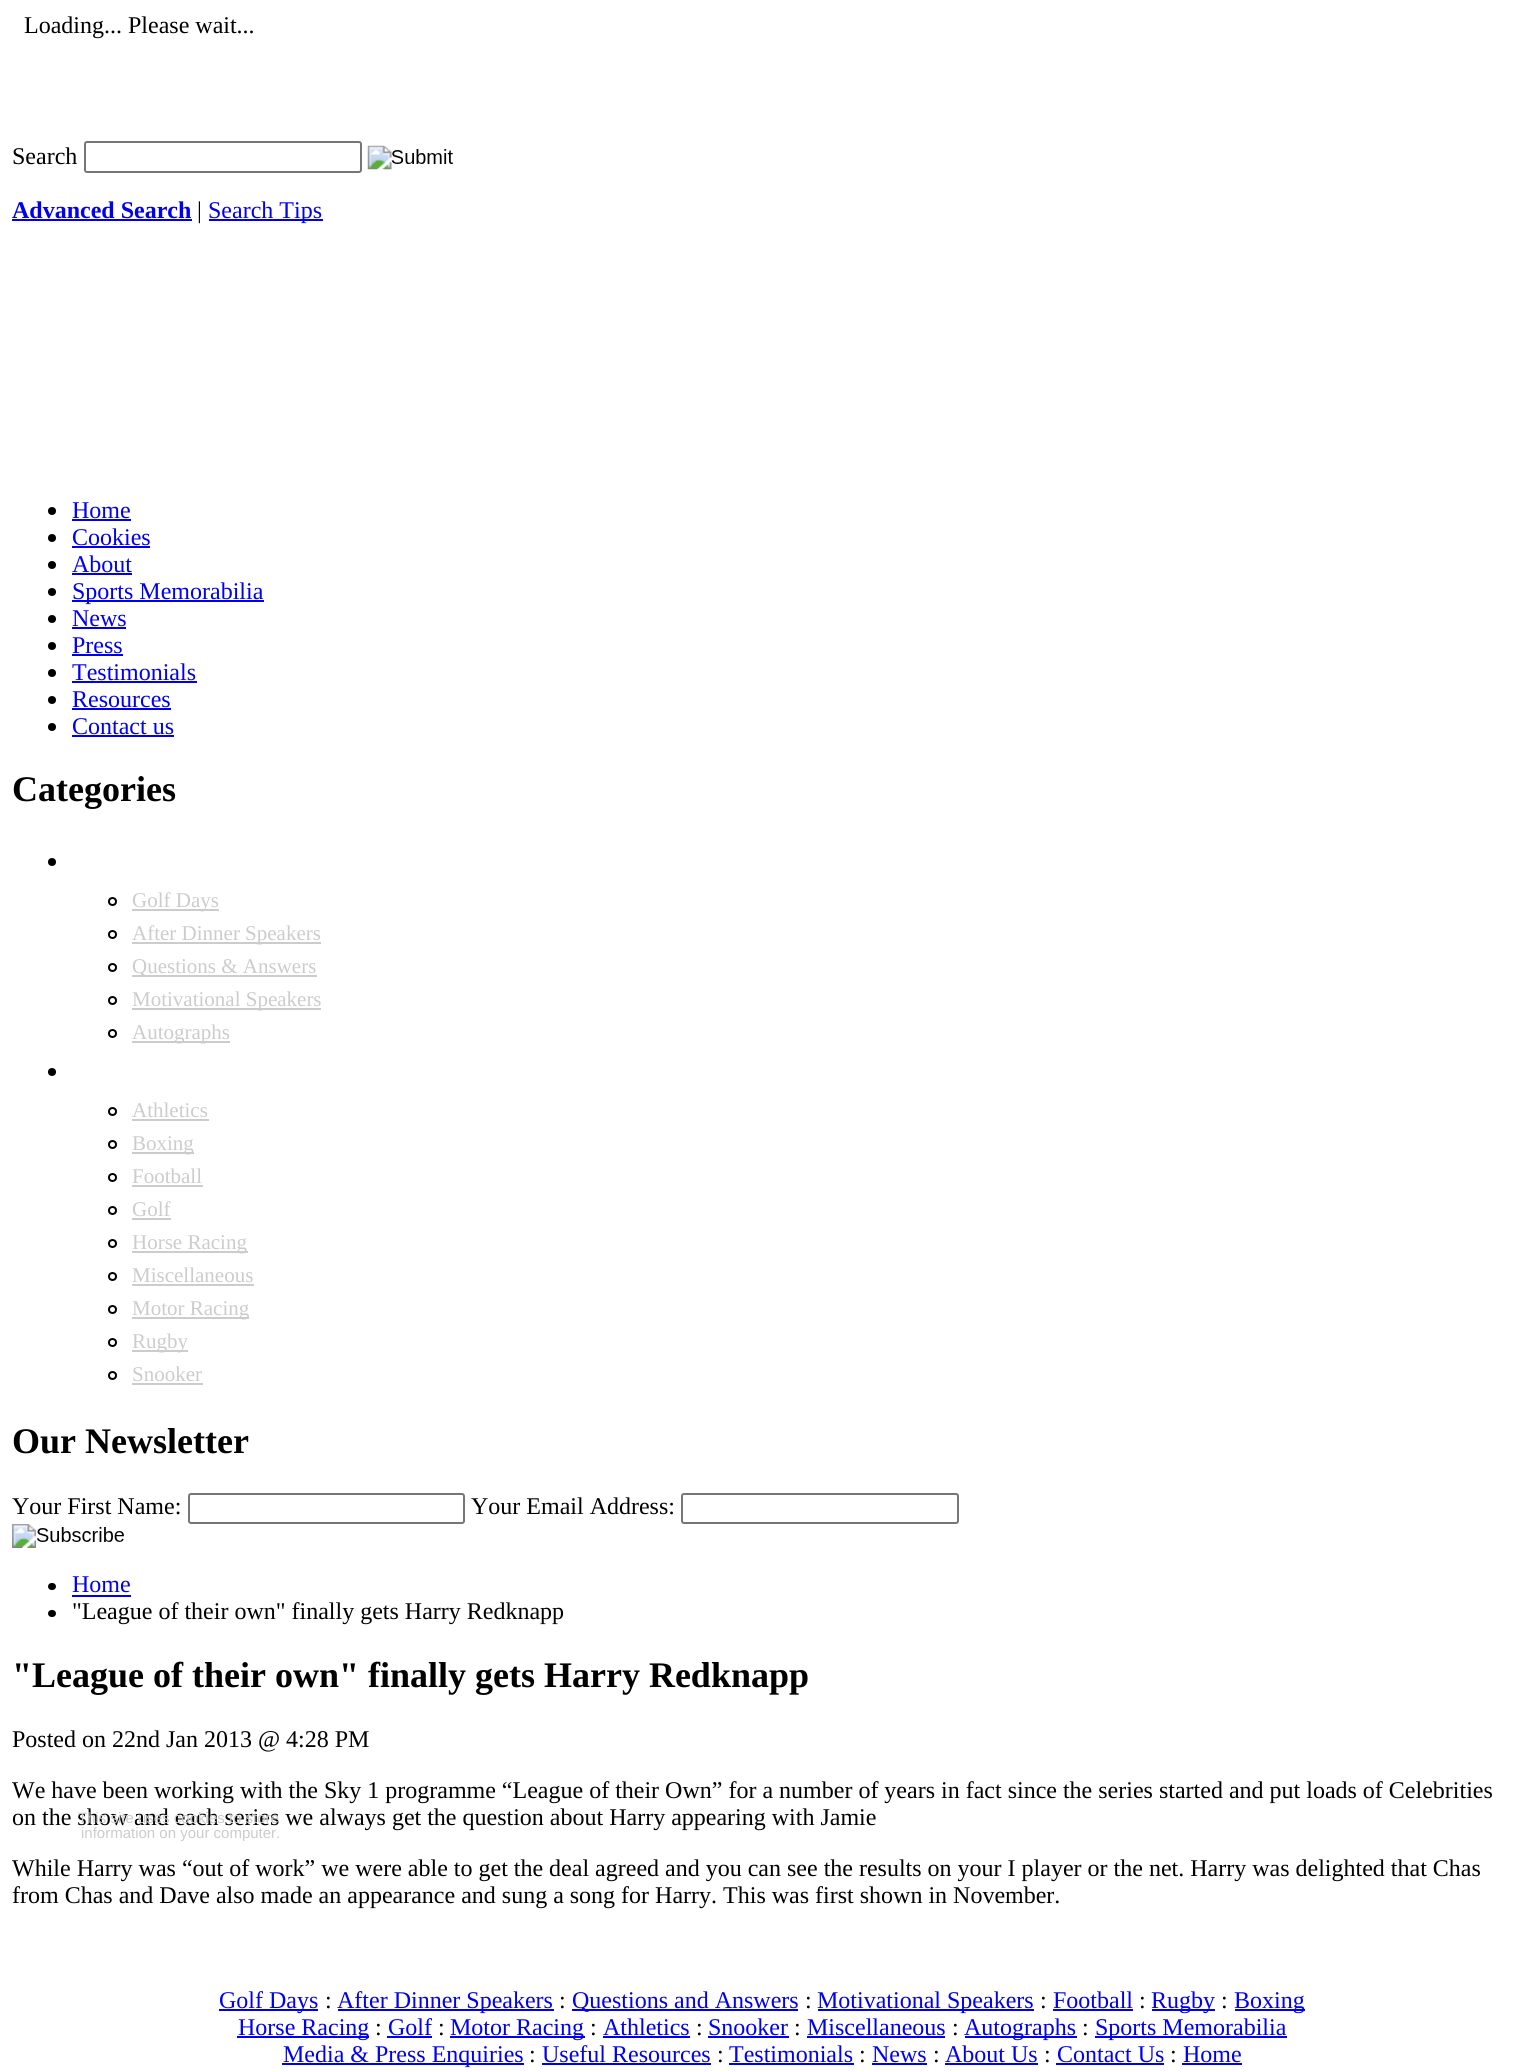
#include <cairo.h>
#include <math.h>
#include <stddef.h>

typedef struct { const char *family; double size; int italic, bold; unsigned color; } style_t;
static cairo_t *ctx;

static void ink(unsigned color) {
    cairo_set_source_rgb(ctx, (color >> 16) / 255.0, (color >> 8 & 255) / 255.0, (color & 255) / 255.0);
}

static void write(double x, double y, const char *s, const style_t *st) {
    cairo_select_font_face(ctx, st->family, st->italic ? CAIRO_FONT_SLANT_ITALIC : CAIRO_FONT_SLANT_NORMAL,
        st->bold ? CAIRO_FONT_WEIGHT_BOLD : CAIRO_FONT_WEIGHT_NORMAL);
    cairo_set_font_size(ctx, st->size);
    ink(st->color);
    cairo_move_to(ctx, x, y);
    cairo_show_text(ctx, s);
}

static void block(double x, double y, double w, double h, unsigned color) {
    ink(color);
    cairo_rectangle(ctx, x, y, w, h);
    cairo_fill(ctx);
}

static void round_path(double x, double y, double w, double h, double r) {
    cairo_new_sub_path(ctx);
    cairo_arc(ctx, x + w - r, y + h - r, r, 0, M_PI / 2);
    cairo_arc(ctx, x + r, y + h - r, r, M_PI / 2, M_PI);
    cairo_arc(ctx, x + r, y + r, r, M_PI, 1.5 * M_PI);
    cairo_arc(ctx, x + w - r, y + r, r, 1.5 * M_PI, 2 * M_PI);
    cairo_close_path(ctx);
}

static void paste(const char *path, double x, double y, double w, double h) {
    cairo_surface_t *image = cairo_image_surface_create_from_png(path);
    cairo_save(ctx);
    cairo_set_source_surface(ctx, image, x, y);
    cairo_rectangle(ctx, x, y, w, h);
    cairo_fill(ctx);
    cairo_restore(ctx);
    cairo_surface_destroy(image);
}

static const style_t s1 = {"Liberation Serif", 24, 0, 0, 0x000000};
static const style_t s2 = {"Liberation Serif", 24, 0, 1, 0x0000ee};
static const style_t s3 = {"Liberation Serif", 24, 0, 0, 0x0000ee};
static const style_t s4 = {"Liberation Serif", 36, 0, 1, 0x000000};
static const style_t s5 = {"Liberation Serif", 21, 0, 0, 0xcccccc};
static const style_t s6 = {"Liberation Sans", 15, 0, 0, 0xcccccc};

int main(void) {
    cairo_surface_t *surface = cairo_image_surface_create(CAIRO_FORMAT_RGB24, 1524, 2071);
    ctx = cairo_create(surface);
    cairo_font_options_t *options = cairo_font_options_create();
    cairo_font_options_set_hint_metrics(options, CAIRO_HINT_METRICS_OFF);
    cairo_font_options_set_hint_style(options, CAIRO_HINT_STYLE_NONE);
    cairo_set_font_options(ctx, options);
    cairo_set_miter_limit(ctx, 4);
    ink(0xffffff);
    cairo_paint(ctx);
    write(24, 33, "Loading... Please wait...", &s1);
    write(12, 164, "Search", &s1);
    round_path(85, 142, 276, 30, 2);
    ink(0x767676);
    cairo_stroke(ctx);
    paste("pic1.png", 367, 145, 86, 25);
    write(12, 218, "Advanced Search", &s2);
    block(12, 219, 180, 2, 0x0000ee);
    write(197, 218, "|", &s1);
    block(209, 219, 114, 2, 0x0000ee);
    write(208, 218, "Search Tips", &s3);
    ink(0x000000);
    cairo_new_path(ctx);
    cairo_arc(ctx, 52, 511, 4, 0, 2 * M_PI);
    cairo_fill(ctx);
    write(72, 518, "Home", &s3);
    block(72, 519, 59, 2, 0x0000ee);
    ink(0x000000);
    cairo_new_path(ctx);
    cairo_arc(ctx, 52, 538, 4, 0, 2 * M_PI);
    cairo_fill(ctx);
    write(72, 545, "Cookies", &s3);
    block(72, 546, 78, 2, 0x0000ee);
    ink(0x000000);
    cairo_new_path(ctx);
    cairo_arc(ctx, 52, 565, 4, 0, 2 * M_PI);
    cairo_fill(ctx);
    write(72, 572, "About", &s3);
    block(72, 573, 60, 2, 0x0000ee);
    ink(0x000000);
    cairo_new_path(ctx);
    cairo_arc(ctx, 52, 592, 4, 0, 2 * M_PI);
    cairo_fill(ctx);
    block(72, 600, 192, 2, 0x0000ee);
    write(72, 599, "Sports Memorabilia", &s3);
    ink(0x000000);
    cairo_new_path(ctx);
    cairo_arc(ctx, 52, 619, 4, 0, 2 * M_PI);
    cairo_fill(ctx);
    write(72, 626, "News", &s3);
    block(72, 627, 54, 2, 0x0000ee);
    ink(0x000000);
    cairo_new_path(ctx);
    cairo_arc(ctx, 52, 646, 4, 0, 2 * M_PI);
    cairo_fill(ctx);
    write(72, 653, "Press", &s3);
    block(72, 654, 51, 2, 0x0000ee);
    ink(0x000000);
    cairo_new_path(ctx);
    cairo_arc(ctx, 52, 673, 4, 0, 2 * M_PI);
    cairo_fill(ctx);
    write(72, 680, "Testimonials", &s3);
    block(72, 681, 125, 2, 0x0000ee);
    ink(0x000000);
    cairo_new_path(ctx);
    cairo_arc(ctx, 52, 700, 4, 0, 2 * M_PI);
    cairo_fill(ctx);
    write(72, 707, "Resources", &s3);
    block(72, 708, 99, 2, 0x0000ee);
    ink(0x000000);
    cairo_new_path(ctx);
    cairo_arc(ctx, 52, 727, 4, 0, 2 * M_PI);
    cairo_fill(ctx);
    write(72, 734, "Contact us", &s3);
    block(72, 735, 102, 2, 0x0000ee);
    write(12, 801, "Categories", &s4);
    cairo_new_path(ctx);
    cairo_arc(ctx, 52, 862, 4, 0, 2 * M_PI);
    cairo_fill(ctx);
    cairo_arc(ctx, 112.5, 901.5, 3.5, 0, 2 * M_PI);
    cairo_stroke(ctx);
    block(132, 909, 87, 2, 0xcccccc);
    write(132, 907, "Golf Days", &s5);
    cairo_new_path(ctx);
    cairo_arc(ctx, 112.5, 934.5, 3.5, 0, 2 * M_PI);
    ink(0x000000);
    cairo_stroke(ctx);
    block(132, 942, 189, 2, 0xcccccc);
    write(132, 940, "After Dinner Speakers", &s5);
    cairo_new_path(ctx);
    cairo_arc(ctx, 112.5, 967.5, 3.5, 0, 2 * M_PI);
    ink(0x000000);
    cairo_stroke(ctx);
    block(132, 975, 185, 2, 0xcccccc);
    write(132, 973, "Questions & Answers", &s5);
    cairo_new_path(ctx);
    cairo_arc(ctx, 112.5, 1000.5, 3.5, 0, 2 * M_PI);
    ink(0x000000);
    cairo_stroke(ctx);
    block(132, 1008, 189, 2, 0xcccccc);
    write(132, 1006, "Motivational Speakers", &s5);
    cairo_new_path(ctx);
    cairo_arc(ctx, 112.5, 1033.5, 3.5, 0, 2 * M_PI);
    ink(0x000000);
    cairo_stroke(ctx);
    block(132, 1041, 98, 2, 0xcccccc);
    write(132, 1039, "Autographs", &s5);
    ink(0x000000);
    cairo_new_path(ctx);
    cairo_arc(ctx, 52, 1072, 4, 0, 2 * M_PI);
    cairo_fill(ctx);
    cairo_arc(ctx, 112.5, 1111.5, 3.5, 0, 2 * M_PI);
    cairo_stroke(ctx);
    write(132, 1117, "Athletics", &s5);
    block(132, 1119, 77, 2, 0xcccccc);
    cairo_new_path(ctx);
    cairo_arc(ctx, 112.5, 1144.5, 3.5, 0, 2 * M_PI);
    ink(0x000000);
    cairo_stroke(ctx);
    block(132, 1152, 62, 2, 0xcccccc);
    write(132, 1150, "Boxing", &s5);
    cairo_new_path(ctx);
    cairo_arc(ctx, 112.5, 1177.5, 3.5, 0, 2 * M_PI);
    ink(0x000000);
    cairo_stroke(ctx);
    write(132, 1183, "Football", &s5);
    block(132, 1185, 71, 2, 0xcccccc);
    cairo_new_path(ctx);
    cairo_arc(ctx, 112.5, 1210.5, 3.5, 0, 2 * M_PI);
    ink(0x000000);
    cairo_stroke(ctx);
    write(132, 1216, "Golf", &s5);
    block(132, 1218, 39, 2, 0xcccccc);
    cairo_new_path(ctx);
    cairo_arc(ctx, 112.5, 1243.5, 3.5, 0, 2 * M_PI);
    ink(0x000000);
    cairo_stroke(ctx);
    block(132, 1251, 116, 2, 0xcccccc);
    write(132, 1249, "Horse Racing", &s5);
    cairo_new_path(ctx);
    cairo_arc(ctx, 112.5, 1276.5, 3.5, 0, 2 * M_PI);
    ink(0x000000);
    cairo_stroke(ctx);
    write(132, 1282, "Miscellaneous", &s5);
    block(132, 1284, 122, 2, 0xcccccc);
    cairo_new_path(ctx);
    cairo_arc(ctx, 112.5, 1309.5, 3.5, 0, 2 * M_PI);
    ink(0x000000);
    cairo_stroke(ctx);
    block(132, 1317, 117, 2, 0xcccccc);
    write(132, 1315, "Motor Racing", &s5);
    cairo_new_path(ctx);
    cairo_arc(ctx, 112.5, 1342.5, 3.5, 0, 2 * M_PI);
    ink(0x000000);
    cairo_stroke(ctx);
    block(132, 1350, 56, 2, 0xcccccc);
    write(132, 1348, "Rugby", &s5);
    cairo_new_path(ctx);
    cairo_arc(ctx, 112.5, 1375.5, 3.5, 0, 2 * M_PI);
    ink(0x000000);
    cairo_stroke(ctx);
    write(132, 1381, "Snooker", &s5);
    block(132, 1383, 71, 2, 0xcccccc);
    write(12, 1453, "Our Newsletter", &s4);
    write(12, 1514, "Your First Name:", &s1);
    round_path(189, 1494, 275, 29, 2);
    ink(0x767676);
    cairo_stroke(ctx);
    write(471, 1514, "Your Email Address:", &s1);
    round_path(682, 1494, 276, 29, 2);
    ink(0x767676);
    cairo_stroke(ctx);
    paste("pic2.png", 12, 1524, 112, 24);
    ink(0x000000);
    round_path(48, 1583, 8, 7, 3.5);
    cairo_fill(ctx);
    write(72, 1592, "Home", &s3);
    block(72, 1595, 59, 2, 0x0000ee);
    ink(0x000000);
    round_path(48, 1610, 8, 7, 3.5);
    cairo_fill(ctx);
    write(72, 1619, "\"League of their own\" finally gets Harry Redknapp", &s1);
    write(12, 1687, "\"League of their own\" finally gets Harry Redknapp", &s4);
    write(12, 1747, "Posted on 22nd Jan 2013 @ 4:28 PM", &s1);
    write(12, 1798, "We have been working with the Sky 1 programme “League of their Own” for a number of years in fact since the series started and put loads of Celebrities", &s1);
    write(12, 1825, "on the show and each series we always get the question about Harry appearing with Jamie", &s1);
    write(12, 1876, "While Harry was “out of work” we were able to get the deal agreed and you can see the results on your I player or the net. Harry was delighted that Chas", &s1);
    write(12, 1903, "from Chas and Dave also made an appearance and sung a song for Harry. This was first shown in November.", &s1);
    block(219, 2009, 99, 2, 0x0000ee);
    write(219, 2008, "Golf Days", &s3);
    write(325, 2008, ":", &s1);
    block(338, 2009, 216, 2, 0x0000ee);
    write(337, 2008, "After Dinner Speakers", &s3);
    write(559, 2008, ":", &s1);
    block(572, 2009, 226, 2, 0x0000ee);
    write(572, 2008, "Questions and Answers", &s3);
    write(805, 2008, ":", &s1);
    block(818, 2009, 216, 2, 0x0000ee);
    write(817, 2008, "Motivational Speakers", &s3);
    write(1040, 2008, ":", &s1);
    write(1053, 2008, "Football", &s3);
    block(1053, 2009, 80, 2, 0x0000ee);
    write(1139, 2008, ":", &s1);
    block(1152, 2009, 63, 2, 0x0000ee);
    write(1151, 2008, "Rugby", &s3);
    write(1221, 2008, ":", &s1);
    block(1235, 2009, 70, 2, 0x0000ee);
    write(1234, 2008, "Boxing", &s3);
    block(237, 2036, 132, 2, 0x0000ee);
    write(238, 2035, "Horse Racing", &s3);
    write(375, 2035, ":", &s1);
    write(388, 2035, "Golf", &s3);
    block(387, 2036, 45, 2, 0x0000ee);
    write(438, 2035, ":", &s1);
    block(450, 2036, 135, 2, 0x0000ee);
    write(450, 2035, "Motor Racing", &s3);
    write(590, 2035, ":", &s1);
    write(603, 2035, "Athletics", &s3);
    block(603, 2036, 87, 2, 0x0000ee);
    write(696, 2035, ":", &s1);
    write(708, 2035, "Snooker", &s3);
    block(708, 2036, 81, 2, 0x0000ee);
    write(794, 2035, ":", &s1);
    write(807, 2035, "Miscellaneous", &s3);
    block(807, 2036, 138, 2, 0x0000ee);
    write(952, 2035, ":", &s1);
    block(965, 2036, 112, 2, 0x0000ee);
    write(964, 2035, "Autographs", &s3);
    write(1082, 2035, ":", &s1);
    block(1095, 2036, 192, 2, 0x0000ee);
    write(1095, 2035, "Sports Memorabilia", &s3);
    block(282, 2063, 242, 2, 0x0000ee);
    write(283, 2062, "Media & Press Enquiries", &s3);
    write(529, 2062, ":", &s1);
    write(542, 2062, "Useful Resources", &s3);
    block(542, 2063, 169, 2, 0x0000ee);
    write(717, 2062, ":", &s1);
    write(729, 2062, "Testimonials", &s3);
    block(729, 2063, 125, 2, 0x0000ee);
    write(859, 2062, ":", &s1);
    write(872, 2062, "News", &s3);
    block(872, 2063, 55, 2, 0x0000ee);
    write(933, 2062, ":", &s1);
    write(945, 2062, "About Us", &s3);
    block(945, 2063, 93, 2, 0x0000ee);
    write(1044, 2062, ":", &s1);
    write(1057, 2062, "Contact Us", &s3);
    block(1056, 2063, 108, 2, 0x0000ee);
    write(1170, 2062, ":", &s1);
    write(1183, 2062, "Home", &s3);
    block(1182, 2063, 60, 2, 0x0000ee);
    write(78, 1823, "This site uses cookies to store", &s6);
    write(81, 1838, "information on your computer.", &s6);
    cairo_surface_write_to_png(surface, "screenshot.png");
    cairo_font_options_destroy(options);
    cairo_destroy(ctx);
    cairo_surface_destroy(surface);
    return 0;
}
